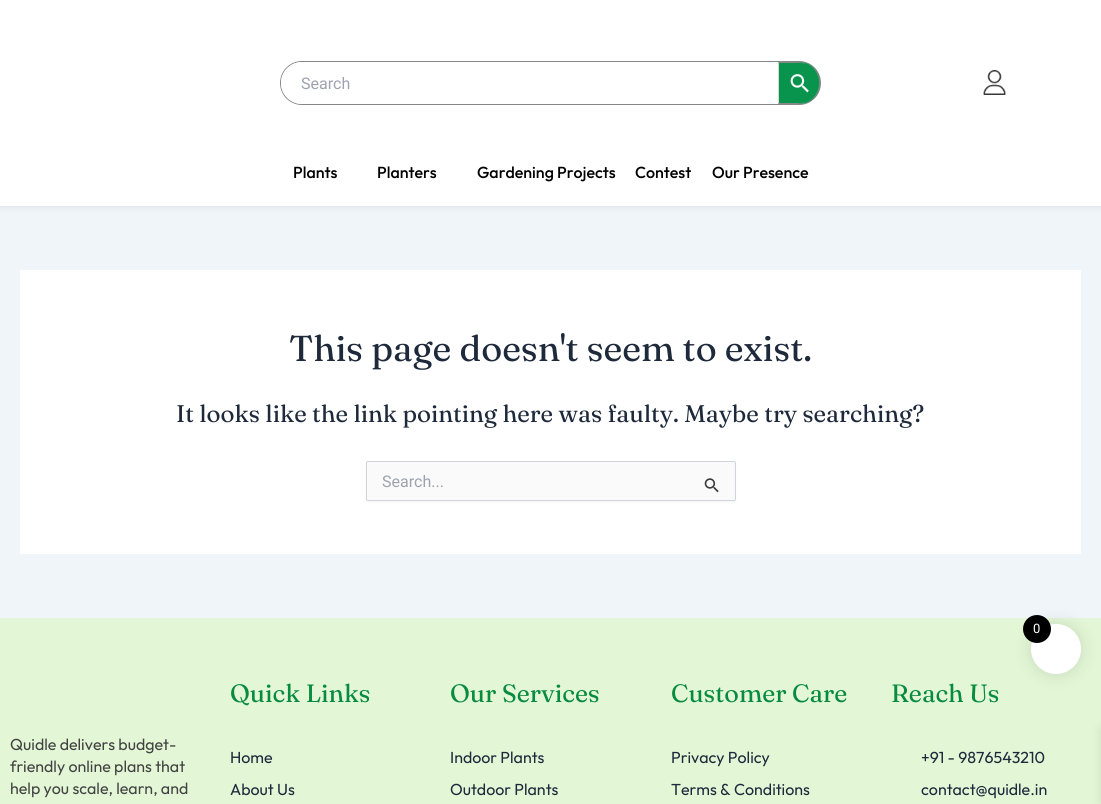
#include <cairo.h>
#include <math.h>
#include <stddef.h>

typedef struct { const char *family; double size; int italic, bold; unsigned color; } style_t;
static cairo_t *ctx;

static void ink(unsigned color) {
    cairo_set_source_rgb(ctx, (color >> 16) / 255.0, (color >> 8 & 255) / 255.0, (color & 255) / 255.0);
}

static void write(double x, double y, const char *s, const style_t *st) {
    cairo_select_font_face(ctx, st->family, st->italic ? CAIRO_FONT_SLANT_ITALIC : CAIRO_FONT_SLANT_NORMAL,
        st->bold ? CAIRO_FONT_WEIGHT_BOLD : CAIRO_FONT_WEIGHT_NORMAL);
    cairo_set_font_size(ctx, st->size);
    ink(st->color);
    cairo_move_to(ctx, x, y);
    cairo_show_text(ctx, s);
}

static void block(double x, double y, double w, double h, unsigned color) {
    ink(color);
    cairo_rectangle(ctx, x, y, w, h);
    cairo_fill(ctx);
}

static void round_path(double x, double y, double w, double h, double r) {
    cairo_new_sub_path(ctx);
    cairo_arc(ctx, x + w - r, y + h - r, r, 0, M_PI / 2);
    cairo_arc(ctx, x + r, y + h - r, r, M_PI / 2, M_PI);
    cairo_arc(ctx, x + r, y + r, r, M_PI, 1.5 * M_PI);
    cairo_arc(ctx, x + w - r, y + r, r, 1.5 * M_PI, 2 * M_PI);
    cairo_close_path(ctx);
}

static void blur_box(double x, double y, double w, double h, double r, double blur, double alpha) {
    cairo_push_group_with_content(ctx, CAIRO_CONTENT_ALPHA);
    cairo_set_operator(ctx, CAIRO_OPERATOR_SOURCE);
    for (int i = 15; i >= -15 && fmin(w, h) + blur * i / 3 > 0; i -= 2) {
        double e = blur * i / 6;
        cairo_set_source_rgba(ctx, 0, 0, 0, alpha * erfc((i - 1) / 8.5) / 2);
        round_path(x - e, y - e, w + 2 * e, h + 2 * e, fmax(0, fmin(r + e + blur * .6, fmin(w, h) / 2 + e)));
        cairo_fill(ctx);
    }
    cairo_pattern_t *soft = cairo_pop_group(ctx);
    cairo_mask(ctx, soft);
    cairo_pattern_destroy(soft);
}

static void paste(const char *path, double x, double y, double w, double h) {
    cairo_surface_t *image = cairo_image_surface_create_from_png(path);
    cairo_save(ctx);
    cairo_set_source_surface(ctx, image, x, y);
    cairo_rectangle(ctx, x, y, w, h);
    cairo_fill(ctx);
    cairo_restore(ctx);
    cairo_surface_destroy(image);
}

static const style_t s1 = {"Roboto", 16, 0, 0, 0x9ca3af};
static const style_t s2 = {"Outfit Medium", 16, 0, 0, 0x000000};
static const style_t s3 = {"Fraunces", 36, 0, 0, 0x1e293b};
static const style_t s4 = {"Fraunces", 24, 0, 0, 0x1e293b};
static const style_t s5 = {"Outfit", 16, 0, 0, 0x424242};
static const style_t s6 = {"Fraunces", 25, 0, 0, 0x068b3f};
static const style_t s7 = {"Outfit", 16, 0, 0, 0x1e293b};
static const style_t s8 = {"Roboto", 13, 0, 0, 0xffffff};

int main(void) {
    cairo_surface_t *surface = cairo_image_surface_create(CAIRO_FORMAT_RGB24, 1101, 804);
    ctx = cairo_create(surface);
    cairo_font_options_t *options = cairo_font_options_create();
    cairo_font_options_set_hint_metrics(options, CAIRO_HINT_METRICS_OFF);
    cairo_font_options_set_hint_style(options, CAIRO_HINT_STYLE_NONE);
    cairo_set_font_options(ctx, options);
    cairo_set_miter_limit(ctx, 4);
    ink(0xf0f5fa);
    cairo_paint(ctx);
    ink(0xb1b1b1);
    blur_box(0, -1, 1101, 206, 0, 4, 0.5);
    block(0, 0, 1101, 206, 0xffffff);
    round_path(280.5, 61.5, 540, 43, 21.5);
    ink(0x868686);
    cairo_set_line_width(ctx, 1);
    cairo_stroke(ctx);
    ink(0xffffff);
    round_path(281, 62, 493, 42, 21);
    cairo_fill(ctx);
    write(301, 89, "Search", &s1);
    ink(0x09944e);
    cairo_new_path(ctx);
    cairo_move_to(ctx, 778, 62);
    cairo_line_to(ctx, 800, 62);
    cairo_curve_to(ctx, 811, 62, 820, 71, 820, 82);
    cairo_line_to(ctx, 820, 84);
    cairo_curve_to(ctx, 820, 95, 811, 104, 800, 104);
    cairo_line_to(ctx, 778, 104);
    cairo_close_path(ctx);
    cairo_fill(ctx);
    ink(0x898989);
    cairo_new_path(ctx);
    cairo_move_to(ctx, 778, 62);
    cairo_line_to(ctx, 790.5, 62);
    cairo_curve_to(ctx, 798.5, 62, 808, 62, 814, 68);
    cairo_line_to(ctx, 813.5, 68.5);
    cairo_curve_to(ctx, 812, 66.5, 809.5, 65, 807, 64);
    cairo_curve_to(ctx, 804, 63, 800.5, 63, 797.5, 63);
    cairo_line_to(ctx, 779, 63);
    cairo_close_path(ctx);
    cairo_fill(ctx);
    cairo_new_path(ctx);
    cairo_move_to(ctx, 820, 83);
    cairo_curve_to(ctx, 820, 88.5, 818, 94, 814, 98);
    cairo_line_to(ctx, 813.5, 97.5);
    cairo_curve_to(ctx, 821, 89.5, 821, 76.5, 813.5, 68.5);
    cairo_line_to(ctx, 814, 68);
    cairo_curve_to(ctx, 818, 72, 820, 77.5, 820, 83);
    cairo_close_path(ctx);
    cairo_fill(ctx);
    cairo_new_path(ctx);
    cairo_move_to(ctx, 796.5, 104);
    cairo_line_to(ctx, 778, 104);
    cairo_line_to(ctx, 779, 103);
    cairo_line_to(ctx, 797.5, 103);
    cairo_curve_to(ctx, 800.5, 103, 804, 103, 807, 102);
    cairo_curve_to(ctx, 809.5, 101, 812, 99.5, 813.5, 97.5);
    cairo_line_to(ctx, 814, 98);
    cairo_curve_to(ctx, 809.5, 102.5, 803, 103.5, 796.5, 104);
    cairo_close_path(ctx);
    cairo_fill(ctx);
    ink(0xd8d8d8);
    cairo_new_path(ctx);
    cairo_move_to(ctx, 778, 62);
    cairo_line_to(ctx, 778, 104);
    cairo_line_to(ctx, 779, 103);
    cairo_line_to(ctx, 779, 63);
    cairo_close_path(ctx);
    cairo_fill(ctx);
    paste("pic1.png", 790, 74, 19, 19);
    paste("pic2.png", 983, 70, 23, 25);
    write(293, 178, "Plants", &s2);
    write(377, 178, "Planters", &s2);
    write(477, 178, "Gardening Projects", &s2);
    write(635, 178, "Contest", &s2);
    write(712, 178, "Our Presence", &s2);
    block(20, 270, 1061, 284, 0xffffff);
    write(289, 361, "This page doesn't seem to exist.", &s3);
    write(176, 422, "It looks like the link pointing here was faulty. Maybe try searching?", &s4);
    ink(0x000000);
    blur_box(366, 462, 370, 40, 2, 1, 0.05);
    ink(0xfafafa);
    round_path(366.5, 461.5, 369, 39, 1.5);
    cairo_fill_preserve(ctx);
    ink(0xd1d5db);
    cairo_stroke(ctx);
    write(382, 487, "Search...", &s1);
    paste("pic3.png", 704, 478, 15, 15);
    block(0, 618, 1101, 186, 0xe3f7d6);
    write(10, 750, "Quidle delivers budget-", &s5);
    write(10, 772, "friendly online plans that", &s5);
    write(10, 794, "help you scale, learn, and", &s5);
    write(230, 702, "Quick Links", &s6);
    write(230, 763, "Home", &s7);
    write(230, 795, "About Us", &s7);
    write(450, 702, "Our Services", &s6);
    write(450, 763, "Indoor Plants", &s7);
    write(450, 795, "Outdoor Plants", &s7);
    write(671, 702, "Customer Care", &s6);
    write(671, 763, "Privacy Policy", &s7);
    write(671, 795, "Terms & Conditions", &s7);
    write(891, 702, "Reach Us", &s6);
    write(921, 763, "+91 - 9876543210", &s7);
    write(921, 795, "contact@quidle.in", &s7);
    ink(0x000000);
    blur_box(1029, 622, 54, 54, 27, 7.5, 0.1);
    ink(0xffffff);
    cairo_arc(ctx, 1056, 649, 25, 0, 2 * M_PI);
    cairo_fill(ctx);
    ink(0x000000);
    cairo_arc(ctx, 1037, 629, 14, 0, 2 * M_PI);
    cairo_fill(ctx);
    write(1033, 633, "0", &s8);
    ink(0x000000);
    blur_box(1101, 729, 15, 74, 0, 5, 0.1);
    cairo_surface_write_to_png(surface, "screenshot.png");
    cairo_font_options_destroy(options);
    cairo_destroy(ctx);
    cairo_surface_destroy(surface);
    return 0;
}
